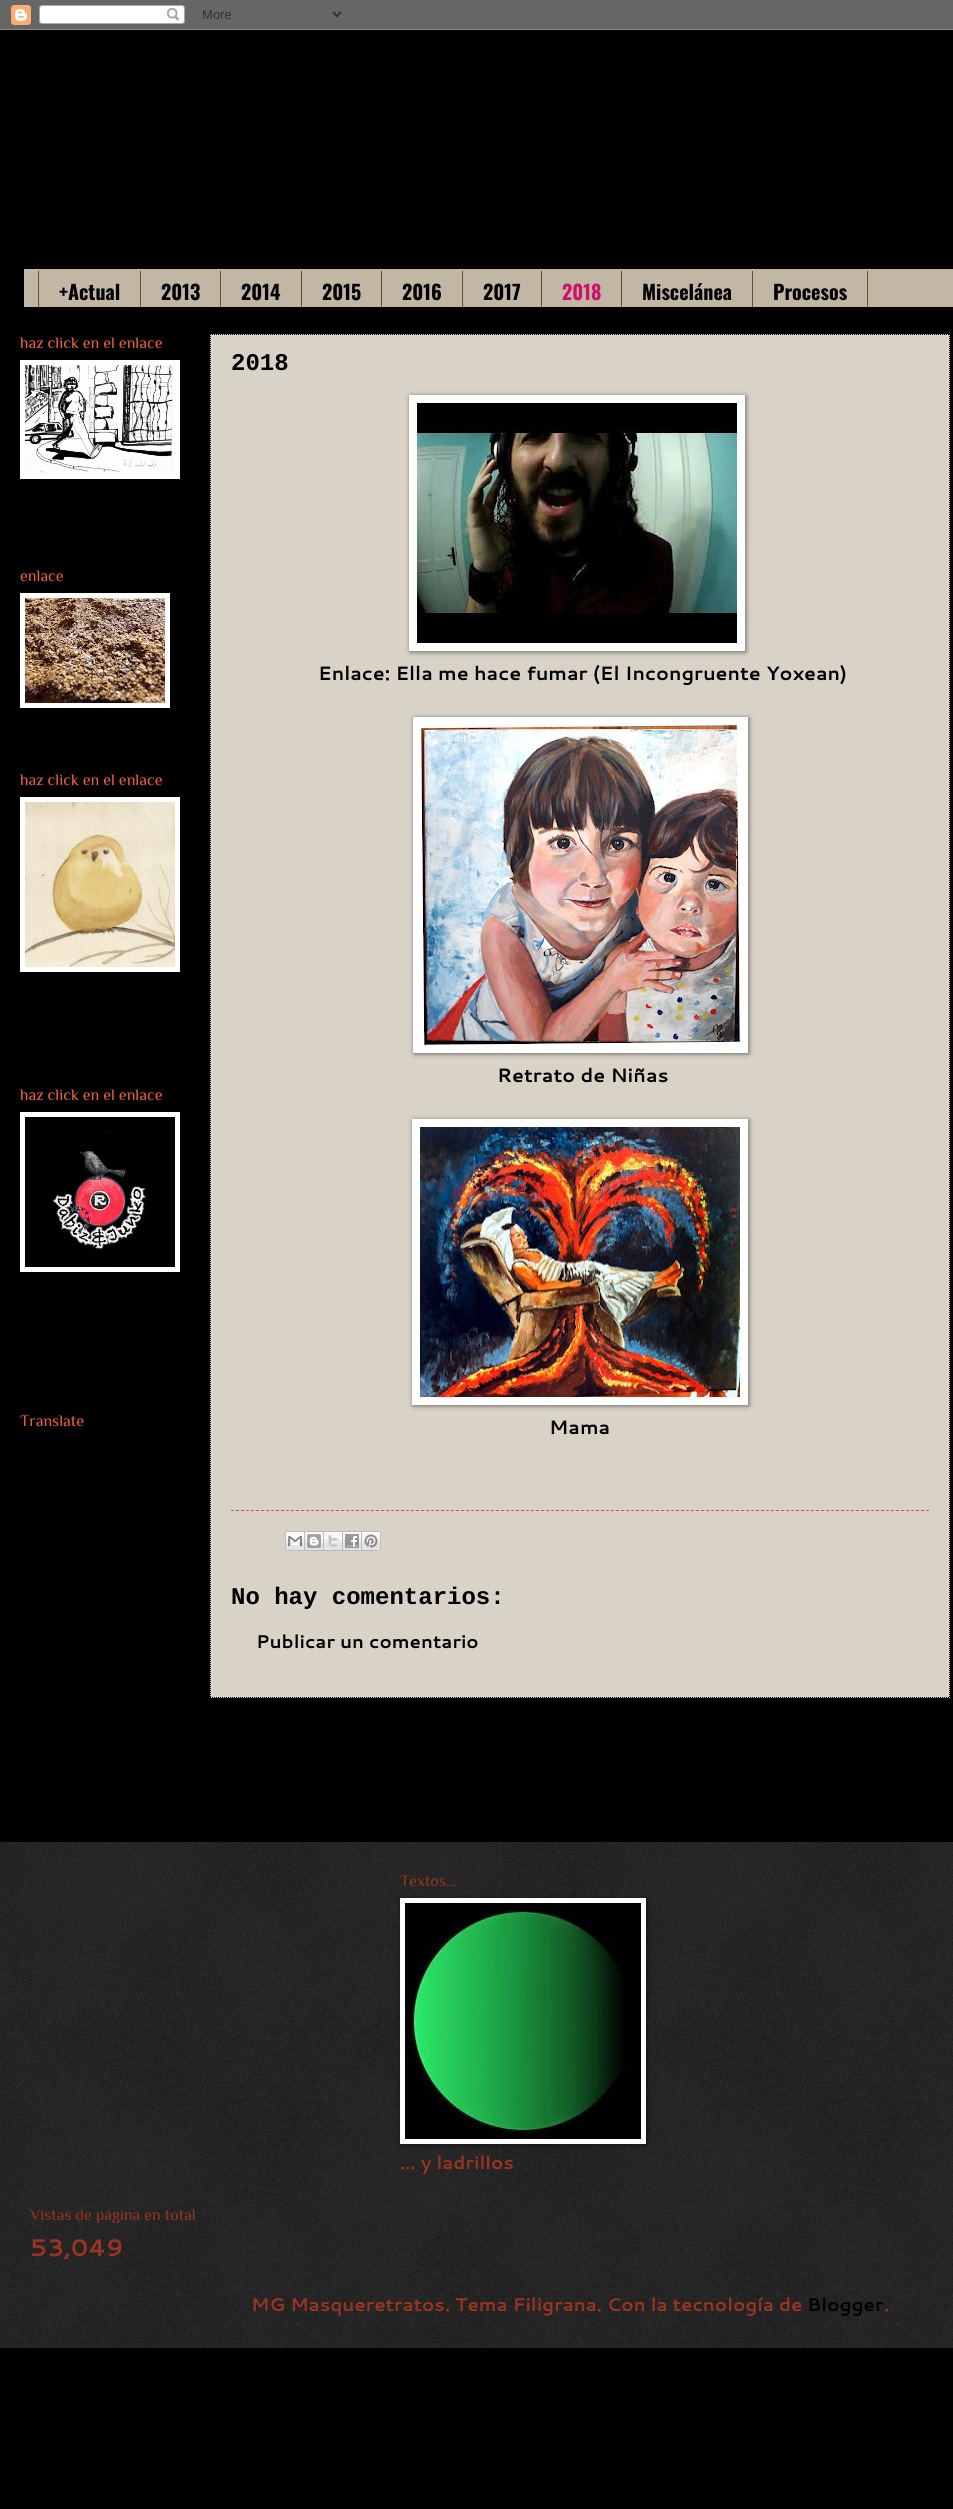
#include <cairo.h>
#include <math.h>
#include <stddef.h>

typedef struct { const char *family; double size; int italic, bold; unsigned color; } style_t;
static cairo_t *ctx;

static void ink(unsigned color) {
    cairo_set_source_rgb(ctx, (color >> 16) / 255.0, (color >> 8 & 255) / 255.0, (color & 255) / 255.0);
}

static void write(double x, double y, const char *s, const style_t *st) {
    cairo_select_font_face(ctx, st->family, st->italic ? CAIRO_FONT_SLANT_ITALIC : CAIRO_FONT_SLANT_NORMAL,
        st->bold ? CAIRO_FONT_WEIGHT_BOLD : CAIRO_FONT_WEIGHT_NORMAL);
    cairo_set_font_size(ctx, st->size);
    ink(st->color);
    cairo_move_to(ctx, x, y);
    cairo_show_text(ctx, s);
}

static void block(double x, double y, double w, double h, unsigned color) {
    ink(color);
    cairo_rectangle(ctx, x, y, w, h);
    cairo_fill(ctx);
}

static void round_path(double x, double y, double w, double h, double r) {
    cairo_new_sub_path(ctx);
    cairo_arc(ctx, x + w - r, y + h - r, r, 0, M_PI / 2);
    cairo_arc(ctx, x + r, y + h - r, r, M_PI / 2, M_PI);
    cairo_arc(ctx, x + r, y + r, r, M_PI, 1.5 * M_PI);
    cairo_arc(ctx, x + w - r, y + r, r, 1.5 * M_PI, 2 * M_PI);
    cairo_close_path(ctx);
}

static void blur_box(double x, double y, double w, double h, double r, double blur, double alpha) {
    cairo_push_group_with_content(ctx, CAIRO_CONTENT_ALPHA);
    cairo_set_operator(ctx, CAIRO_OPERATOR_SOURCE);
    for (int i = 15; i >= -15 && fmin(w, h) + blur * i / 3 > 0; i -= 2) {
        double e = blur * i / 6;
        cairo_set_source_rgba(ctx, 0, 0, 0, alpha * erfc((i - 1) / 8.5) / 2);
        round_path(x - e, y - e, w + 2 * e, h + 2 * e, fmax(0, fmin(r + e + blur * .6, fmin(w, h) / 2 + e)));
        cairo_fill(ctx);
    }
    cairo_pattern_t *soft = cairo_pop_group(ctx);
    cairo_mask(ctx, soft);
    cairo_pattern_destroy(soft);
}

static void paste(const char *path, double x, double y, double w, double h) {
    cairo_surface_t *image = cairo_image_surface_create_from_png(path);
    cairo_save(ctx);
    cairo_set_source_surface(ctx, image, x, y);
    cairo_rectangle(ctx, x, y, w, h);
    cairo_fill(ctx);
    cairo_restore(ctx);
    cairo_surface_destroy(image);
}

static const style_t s1 = {"Oswald", 20, 0, 1, 0x000000};
static const style_t s2 = {"Oswald", 20, 0, 1, 0xcc126c};
static const style_t s3 = {"Philosopher", 16, 0, 0, 0xf46039};
static const style_t s4 = {"Liberation Mono", 24, 0, 1, 0x000000};
static const style_t s5 = {"Cantarell", 19.3, 0, 1, 0x000000};
static const style_t s6 = {"Cantarell", 18.4, 0, 1, 0x000000};
static const style_t s7 = {"Philosopher", 16, 0, 0, 0x993322};
static const style_t s8 = {"Cantarell", 18.4, 0, 1, 0x993322};
static const style_t s9 = {"Cantarell", 24, 0, 1, 0x993322};

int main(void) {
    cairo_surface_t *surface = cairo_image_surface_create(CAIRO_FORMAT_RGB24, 953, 2509);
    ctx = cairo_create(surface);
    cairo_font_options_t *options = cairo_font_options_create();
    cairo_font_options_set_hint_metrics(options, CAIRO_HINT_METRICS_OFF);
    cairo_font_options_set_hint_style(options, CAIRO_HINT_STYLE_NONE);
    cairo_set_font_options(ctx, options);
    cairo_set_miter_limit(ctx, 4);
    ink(0x000000);
    cairo_paint(ctx);
    paste("pic1.png", 0, 0, 953, 30);
    block(24, 269, 929, 38, 0xc1b7a4);
    block(140, 271, 1, 36, 0x60502a);
    block(38, 271, 1, 36, 0x60502a);
    write(59, 300, "+Actual", &s1);
    block(220, 271, 1, 36, 0x60502a);
    write(161, 300, "2013", &s1);
    block(301, 271, 1, 36, 0x60502a);
    write(241, 300, "2014", &s1);
    block(381, 271, 1, 36, 0x60502a);
    write(322, 300, "2015", &s1);
    block(462, 271, 1, 36, 0x60502a);
    write(402, 300, "2016", &s1);
    block(541, 271, 1, 36, 0x60502a);
    write(483, 300, "2017", &s1);
    block(621, 271, 1, 36, 0x60502a);
    write(562, 300, "2018", &s2);
    block(752, 271, 1, 36, 0x60502a);
    write(642, 300, "Miscelánea", &s1);
    block(867, 271, 1, 36, 0x60502a);
    write(773, 300, "Procesos", &s1);
    write(20, 348, "haz click en el enlace", &s3);
    block(20, 360, 160, 119, 0xffffff);
    paste("pic2.png", 25, 365, 150, 109);
    write(20, 581, "enlace", &s3);
    block(20, 593, 150, 115, 0xffffff);
    paste("pic3.png", 25, 598, 140, 105);
    write(20, 785, "haz click en el enlace", &s3);
    block(20, 797, 160, 175, 0xffffff);
    paste("pic4.png", 25, 802, 150, 165);
    write(20, 1100, "haz click en el enlace", &s3);
    block(20, 1112, 160, 160, 0xffffff);
    paste("pic5.png", 25, 1117, 150, 150);
    write(20, 1426, "Translate", &s3);
    block(210, 334, 740, 1364, 0xd9d3c7);
    cairo_new_path(ctx);
    cairo_move_to(ctx, 210, 334.5);
    cairo_line_to(ctx, 950, 334.5);
    ink(0x000000);
    cairo_set_line_width(ctx, 1);
    cairo_set_dash(ctx, (double[]){1, 1}, 2, 0);
    cairo_stroke(ctx);
    cairo_new_path(ctx);
    cairo_move_to(ctx, 949.5, 334);
    cairo_line_to(ctx, 949.5, 1698);
    cairo_stroke(ctx);
    cairo_new_path(ctx);
    cairo_move_to(ctx, 210, 1697.5);
    cairo_line_to(ctx, 950, 1697.5);
    cairo_stroke(ctx);
    cairo_new_path(ctx);
    cairo_move_to(ctx, 210.5, 334);
    cairo_line_to(ctx, 210.5, 1698);
    cairo_stroke(ctx);
    write(231, 370, "2018", &s4);
    ink(0x000000);
    blur_box(410, 396, 336, 256, 0, 2.5, 0.5);
    block(409, 395, 336, 256, 0xffffff);
    paste("pic6.png", 417, 403, 320, 240);
    write(318, 680, "Enlace: Ella me hace fumar (El Incongruente Yoxean)", &s5);
    ink(0x000000);
    blur_box(414, 718, 335, 336, 0, 2.5, 0.5);
    block(413, 717, 335, 336, 0xffffff);
    paste("pic7.png", 421, 725, 319, 320);
    write(497, 1082, "Retrato de Niñas", &s5);
    ink(0x000000);
    blur_box(413, 1120, 336, 286, 0, 2.5, 0.5);
    block(412, 1119, 336, 286, 0xffffff);
    paste("pic8.png", 420, 1127, 320, 270);
    write(549, 1434, "Mama", &s5);
    cairo_new_path(ctx);
    cairo_move_to(ctx, 231, 1510.5);
    cairo_line_to(ctx, 929, 1510.5);
    ink(0xdd5533);
    cairo_set_dash(ctx, (double[]){3, 2}, 2, 0);
    cairo_stroke(ctx);
    paste("pic9.png", 285, 1531, 20, 20);
    paste("pic10.png", 305, 1531, 19, 20);
    paste("pic11.png", 324, 1531, 19, 20);
    paste("pic12.png", 343, 1531, 19, 20);
    paste("pic13.png", 362, 1531, 19, 20);
    write(231, 1604, "No hay comentarios:", &s4);
    write(256, 1648, "Publicar un comentario", &s6);
    paste("pic14.png", 0, 1842, 953, 506);
    write(400, 1886, "Textos...", &s7);
    ink(0x000000);
    blur_box(401, 1899, 246, 246, 0, 2.5, 0.5);
    block(400, 1898, 246, 246, 0xffffff);
    paste("pic15.png", 405, 1903, 236, 236);
    write(400, 2169, "... y ladrillos", &s8);
    write(30, 2220, "Vistas de página en total", &s7);
    write(30, 2256, "53,049", &s9);
    write(251, 2311, "MG Masqueretratos. Tema Filigrana. Con la tecnología de", &s8);
    write(807, 2311, "Blogger", &s6);
    write(884, 2311, ".", &s8);
    cairo_surface_write_to_png(surface, "screenshot.png");
    cairo_font_options_destroy(options);
    cairo_destroy(ctx);
    cairo_surface_destroy(surface);
    return 0;
}
